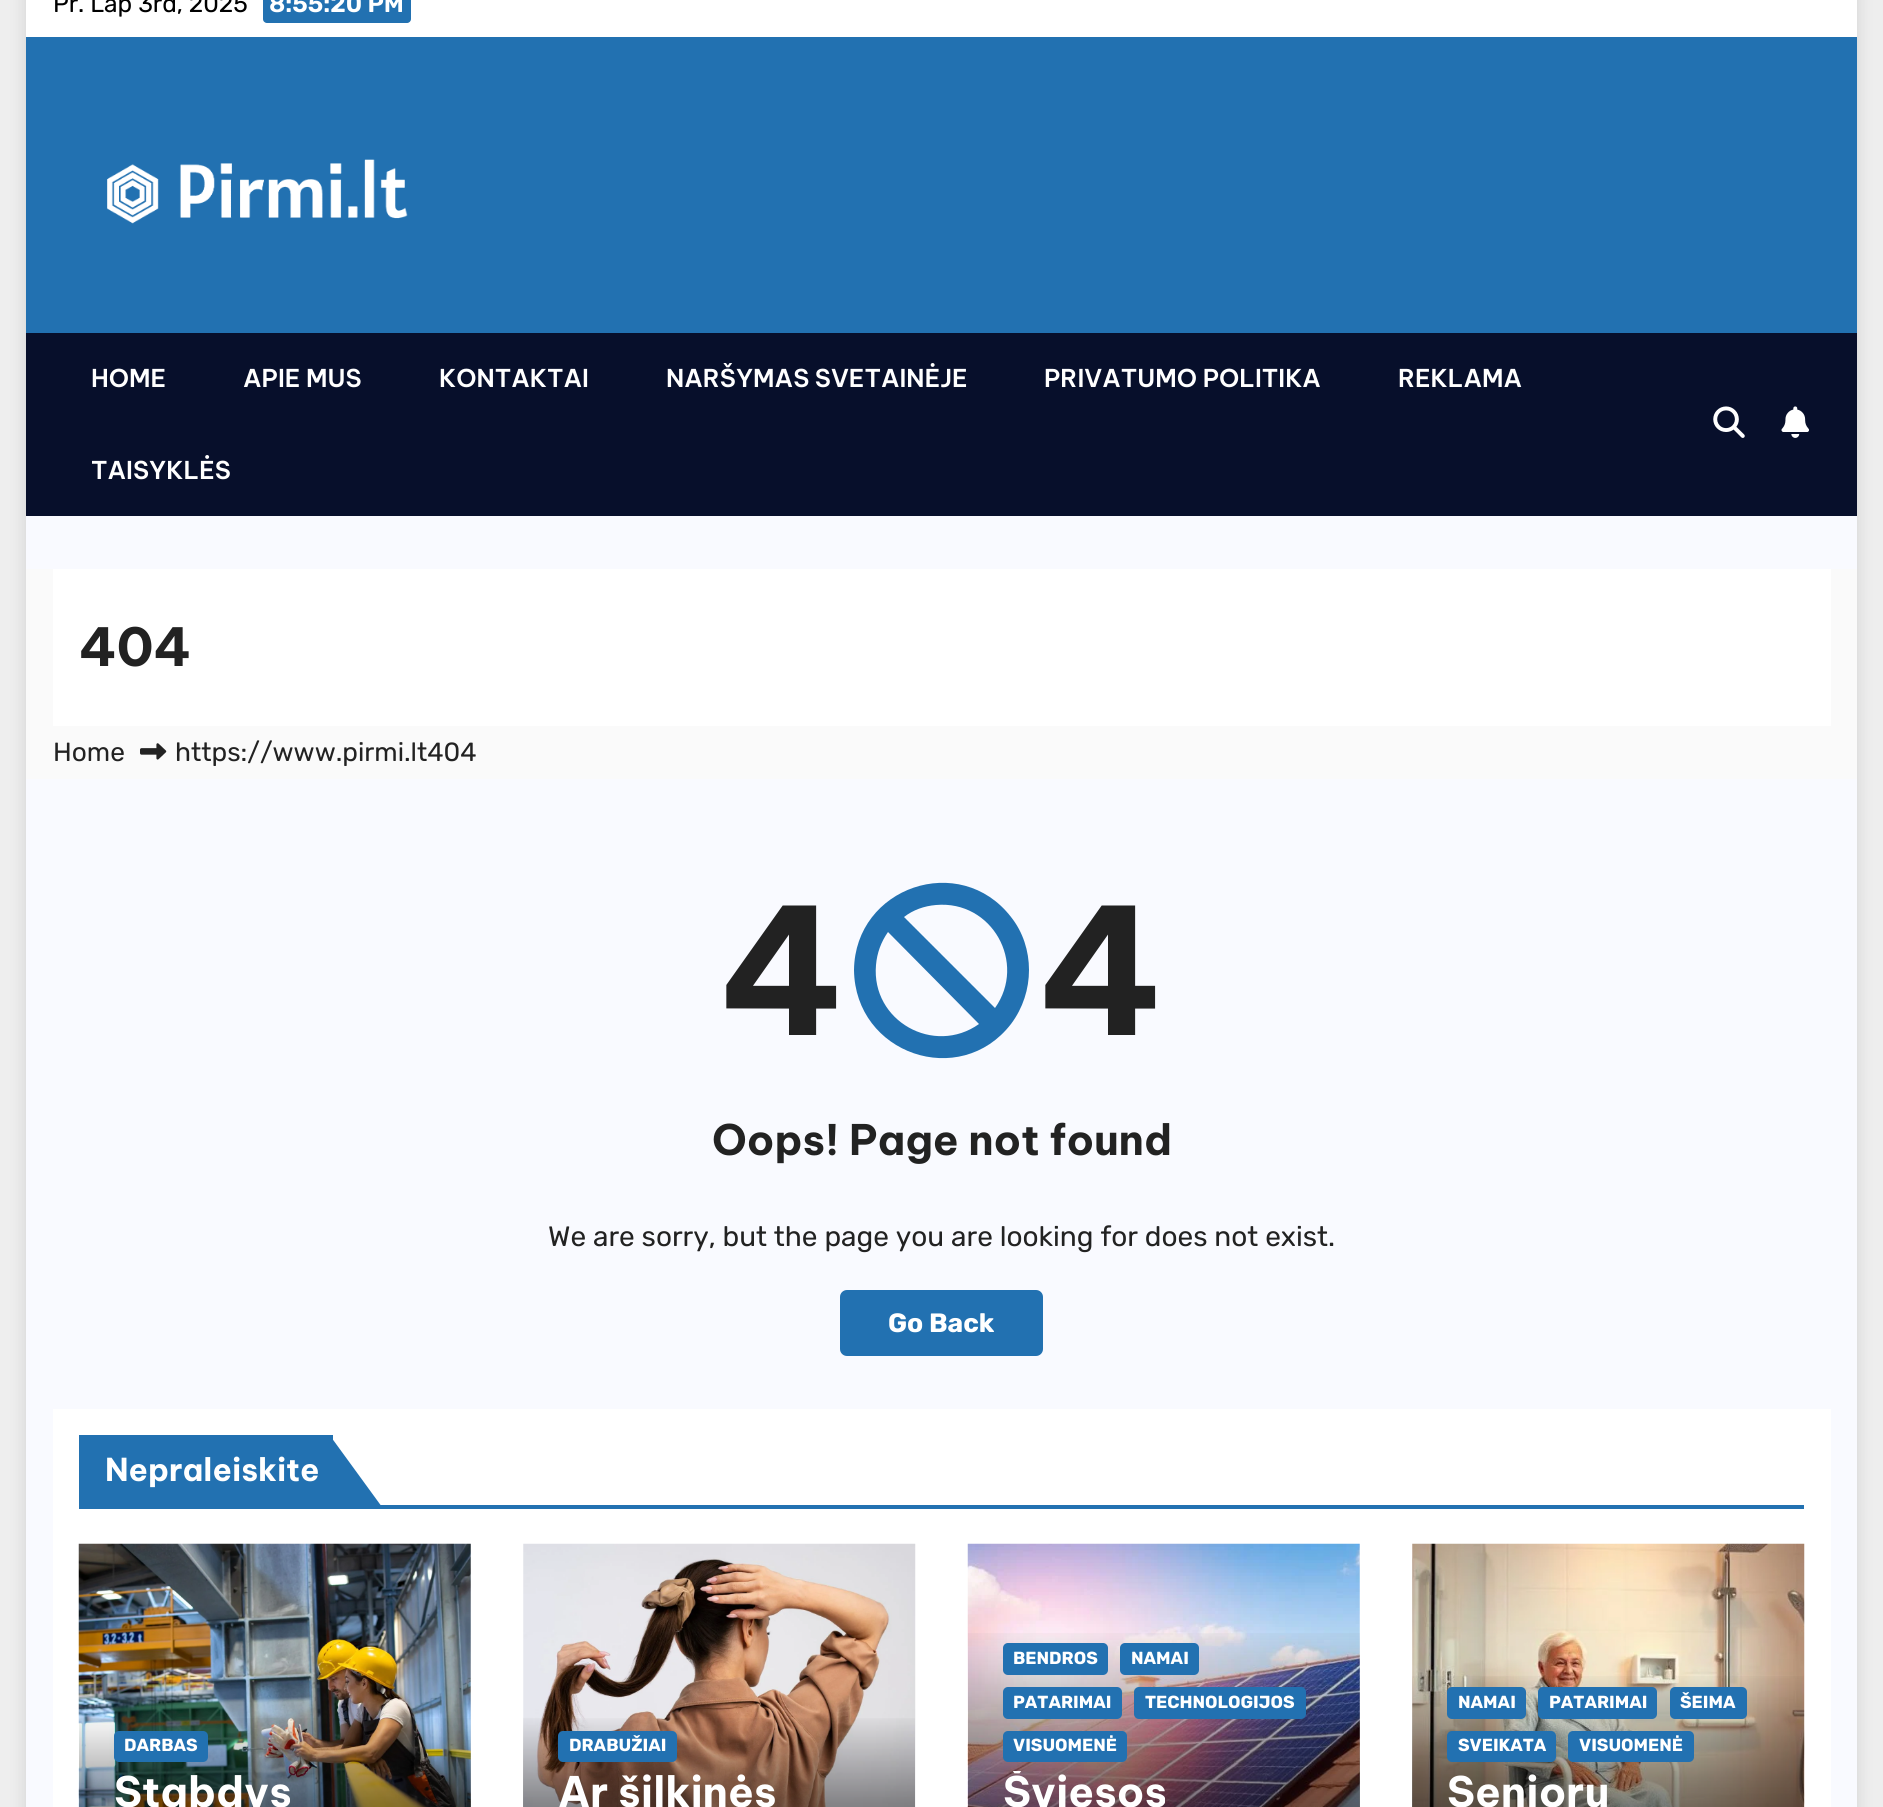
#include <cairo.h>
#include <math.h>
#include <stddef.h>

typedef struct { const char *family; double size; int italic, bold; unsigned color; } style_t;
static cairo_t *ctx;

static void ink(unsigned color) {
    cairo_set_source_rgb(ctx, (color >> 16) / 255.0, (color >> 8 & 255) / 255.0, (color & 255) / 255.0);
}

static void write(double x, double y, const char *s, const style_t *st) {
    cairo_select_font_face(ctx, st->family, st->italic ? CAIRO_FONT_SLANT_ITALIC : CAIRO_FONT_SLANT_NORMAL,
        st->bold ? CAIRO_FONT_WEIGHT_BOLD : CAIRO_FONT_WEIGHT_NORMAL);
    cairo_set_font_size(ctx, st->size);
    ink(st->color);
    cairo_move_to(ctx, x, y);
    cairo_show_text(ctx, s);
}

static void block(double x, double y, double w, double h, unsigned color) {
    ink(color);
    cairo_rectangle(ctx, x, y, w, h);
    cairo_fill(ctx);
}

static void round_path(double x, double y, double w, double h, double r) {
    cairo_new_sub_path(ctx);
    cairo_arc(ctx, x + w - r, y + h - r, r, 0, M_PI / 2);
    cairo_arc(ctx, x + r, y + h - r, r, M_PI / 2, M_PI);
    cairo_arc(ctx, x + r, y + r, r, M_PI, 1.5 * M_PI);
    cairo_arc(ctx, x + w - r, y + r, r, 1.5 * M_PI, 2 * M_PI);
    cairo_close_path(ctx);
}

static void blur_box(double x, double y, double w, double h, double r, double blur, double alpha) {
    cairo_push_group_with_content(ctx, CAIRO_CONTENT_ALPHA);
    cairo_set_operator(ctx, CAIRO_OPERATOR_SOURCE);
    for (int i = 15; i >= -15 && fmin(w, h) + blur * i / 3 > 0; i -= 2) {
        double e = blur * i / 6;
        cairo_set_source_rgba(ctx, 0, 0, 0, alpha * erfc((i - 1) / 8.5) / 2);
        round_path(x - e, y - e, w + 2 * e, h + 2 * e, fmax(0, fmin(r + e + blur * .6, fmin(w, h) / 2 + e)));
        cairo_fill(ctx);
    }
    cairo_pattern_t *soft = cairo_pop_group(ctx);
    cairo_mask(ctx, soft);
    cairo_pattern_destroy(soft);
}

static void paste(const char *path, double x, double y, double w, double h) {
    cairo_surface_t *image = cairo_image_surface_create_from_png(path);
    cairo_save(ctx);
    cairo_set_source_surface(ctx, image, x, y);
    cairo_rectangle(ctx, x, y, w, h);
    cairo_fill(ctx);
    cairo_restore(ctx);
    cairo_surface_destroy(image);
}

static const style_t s1 = {"Rubik", 24.5, 0, 0, 0x000000};
static const style_t s2 = {"Rubik SemiBold", 24.5, 0, 0, 0xffffff};
static const style_t s3 = {"Be Vietnam Pro SemiBold", 24.5, 0, 0, 0xffffff};
static const style_t s4 = {"Be Vietnam Pro", 52.5, 0, 1, 0x222222};
static const style_t s5 = {"Rubik", 26.25, 0, 0, 0x222222};
static const style_t s6 = {"Be Vietnam Pro", 175, 0, 1, 0x222222};
static const style_t s7 = {"Be Vietnam Pro", 42, 0, 1, 0x222222};
static const style_t s8 = {"Rubik", 28, 0, 0, 0x222222};
static const style_t s9 = {"Rubik", 26.5, 0, 1, 0xffffff};
static const style_t s10 = {"Be Vietnam Pro", 31.5, 0, 1, 0xffffff};
static const style_t s11 = {"Rubik", 17.5, 0, 1, 0xffffff};
static const style_t s12 = {"Be Vietnam Pro", 42, 0, 1, 0xffffff};

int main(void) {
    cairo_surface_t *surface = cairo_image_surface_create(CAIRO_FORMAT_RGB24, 1883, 1807);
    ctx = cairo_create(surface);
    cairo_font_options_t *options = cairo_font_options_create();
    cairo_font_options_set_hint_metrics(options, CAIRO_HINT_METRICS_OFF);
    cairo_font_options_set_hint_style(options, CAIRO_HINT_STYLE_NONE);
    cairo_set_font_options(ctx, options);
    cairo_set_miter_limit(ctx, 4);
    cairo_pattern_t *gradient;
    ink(0xeeeeee);
    cairo_paint(ctx);
    ink(0x000000);
    blur_box(26, -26, 1831, 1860, 0, 9, 0.12);
    block(26, 516, 1831, 1291, 0xf9faff);
    block(26, 0, 1831, 37, 0xffffff);
    write(53, 12, "Pr. Lap 3rd, 2025", &s1);
    ink(0x2271b1);
    round_path(263, -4, 148, 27, 4);
    cairo_fill(ctx);
    write(269, 12, "8:55:20 PM", &s2);
    block(26, 37, 1831, 296, 0x2271b1);
    paste("pic1.png", 107, 159, 301, 65);
    block(26, 333, 1831, 183, 0x070f2b);
    write(91, 387, "HOME", &s3);
    write(243, 387, "APIE MUS", &s3);
    write(439, 387, "KONTAKTAI", &s3);
    write(666, 387, "NARŠYMAS SVETAINĖJE", &s3);
    write(1044, 387, "PRIVATUMO POLITIKA", &s3);
    write(1398, 387, "REKLAMA", &s3);
    write(91, 479, "TAISYKLĖS", &s3);
    paste("pic2.png", 1713, 406, 32, 32);
    paste("pic3.png", 1781, 406, 28, 32);
    block(26, 569, 1831, 210, 0xfafafa);
    block(53, 569, 1778, 157, 0xffffff);
    write(79, 666, "404", &s4);
    write(53, 761, "Home", &s5);
    paste("pic4.png", 140, 743, 27, 17);
    write(175, 761, "https://www.pirmi.lt404", &s5);
    write(719, 1035, "4", &s6);
    ink(0x2271b1);
    cairo_new_path(ctx);
    cairo_move_to(ctx, 979, 1024);
    cairo_line_to(ctx, 888, 932);
    cairo_curve_to(ctx, 881, 942, 877, 953, 876, 965);
    cairo_curve_to(ctx, 871, 1021, 934, 1056, 979, 1024);
    cairo_close_path(ctx);
    cairo_move_to(ctx, 995, 1008);
    cairo_curve_to(ctx, 1027, 963, 992, 900, 936, 905);
    cairo_curve_to(ctx, 924, 906, 913, 910, 904, 917);
    cairo_close_path(ctx);
    cairo_move_to(ctx, 854, 970);
    cairo_curve_to(ctx, 855, 887, 960, 851, 1011, 917);
    cairo_curve_to(ctx, 1023, 932, 1029, 951, 1029, 970);
    cairo_curve_to(ctx, 1029, 989, 1023, 1008, 1011, 1024);
    cairo_curve_to(ctx, 960, 1090, 855, 1054, 854, 970);
    cairo_close_path(ctx);
    cairo_fill(ctx);
    write(1038, 1035, "4", &s6);
    write(712, 1155, "Oops! Page not found", &s7);
    write(548, 1246, "We are sorry, but the page you are looking for does not exist.", &s8);
    ink(0x2271b1);
    round_path(842, 1292, 199, 62, 5);
    cairo_fill_preserve(ctx);
    cairo_set_line_width(ctx, 4);
    cairo_stroke(ctx);
    write(888, 1332, "Go Back", &s9);
    block(53, 1409, 1778, 398, 0xffffff);
    block(79, 1505, 1725, 4, 0x2271b1);
    block(79, 1435, 254, 70, 0x2271b1);
    write(105, 1481, "Nepraleiskite", &s10);
    ink(0x2271b1);
    cairo_new_path(ctx);
    cairo_move_to(ctx, 382, 1507);
    cairo_line_to(ctx, 331, 1507);
    cairo_line_to(ctx, 331, 1437);
    cairo_close_path(ctx);
    cairo_fill(ctx);
    paste("pic5.png", 78, 1543, 393, 264);
    gradient = cairo_pattern_create_linear(275, 1713, 275, 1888);
    cairo_pattern_add_color_stop_rgba(gradient, 0, 0, 0, 0, 0);
    cairo_pattern_add_color_stop_rgba(gradient, 0.5, 0, 0, 0, 0.4);
    cairo_pattern_add_color_stop_rgba(gradient, 1, 0, 0, 0, 0.7);
    cairo_set_source(ctx, gradient);
    cairo_pattern_destroy(gradient);
    cairo_rectangle(ctx, 79, 1718, 392, 89);
    cairo_fill(ctx);
    ink(0x2271b1);
    round_path(114, 1731, 94, 31, 5);
    cairo_fill(ctx);
    write(124, 1751, "DARBAS", &s11);
    write(114, 1807, "Stabdys", &s12);
    paste("pic6.png", 523, 1543, 393, 264);
    gradient = cairo_pattern_create_linear(719, 1713, 719, 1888);
    cairo_pattern_add_color_stop_rgba(gradient, 0, 0, 0, 0, 0);
    cairo_pattern_add_color_stop_rgba(gradient, 0.5, 0, 0, 0, 0.4);
    cairo_pattern_add_color_stop_rgba(gradient, 1, 0, 0, 0, 0.7);
    cairo_set_source(ctx, gradient);
    cairo_pattern_destroy(gradient);
    cairo_rectangle(ctx, 523, 1718, 392, 89);
    cairo_fill(ctx);
    ink(0x2271b1);
    round_path(558, 1731, 119, 31, 5);
    cairo_fill(ctx);
    write(569, 1751, "DRABUŽIAI", &s11);
    write(558, 1807, "Ar šilkinės", &s12);
    paste("pic7.png", 967, 1543, 393, 264);
    gradient = cairo_pattern_create_linear(1164, 1626, 1164, 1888);
    cairo_pattern_add_color_stop_rgba(gradient, 0, 0, 0, 0, 0);
    cairo_pattern_add_color_stop_rgba(gradient, 0.5, 0, 0, 0, 0.4);
    cairo_pattern_add_color_stop_rgba(gradient, 1, 0, 0, 0, 0.7);
    cairo_set_source(ctx, gradient);
    cairo_pattern_destroy(gradient);
    cairo_rectangle(ctx, 968, 1633, 392, 174);
    cairo_fill(ctx);
    ink(0x2271b1);
    round_path(1003, 1643, 105, 32, 5);
    cairo_fill(ctx);
    write(1013, 1664, "BENDROS", &s11);
    ink(0x2271b1);
    round_path(1120, 1643, 79, 32, 5);
    cairo_fill(ctx);
    write(1131, 1664, "NAMAI", &s11);
    ink(0x2271b1);
    round_path(1003, 1687, 119, 32, 5);
    cairo_fill(ctx);
    write(1013, 1708, "PATARIMAI", &s11);
    ink(0x2271b1);
    round_path(1134, 1687, 172, 32, 5);
    cairo_fill(ctx);
    write(1145, 1708, "TECHNOLOGIJOS", &s11);
    ink(0x2271b1);
    round_path(1003, 1731, 124, 31, 5);
    cairo_fill(ctx);
    write(1013, 1751, "VISUOMENĖ", &s11);
    cairo_save(ctx);
    cairo_rectangle(ctx, 1003, 1771, 322, 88);
    cairo_clip(ctx);
    write(1003, 1807, "Šviesos", &s12);
    cairo_restore(ctx);
    paste("pic8.png", 1412, 1543, 393, 264);
    gradient = cairo_pattern_create_linear(1608, 1670, 1608, 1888);
    cairo_pattern_add_color_stop_rgba(gradient, 0, 0, 0, 0, 0);
    cairo_pattern_add_color_stop_rgba(gradient, 0.5, 0, 0, 0, 0.4);
    cairo_pattern_add_color_stop_rgba(gradient, 1, 0, 0, 0, 0.7);
    cairo_set_source(ctx, gradient);
    cairo_pattern_destroy(gradient);
    cairo_rectangle(ctx, 1412, 1676, 392, 131);
    cairo_fill(ctx);
    ink(0x2271b1);
    round_path(1447, 1687, 79, 32, 5);
    cairo_fill(ctx);
    write(1458, 1708, "NAMAI", &s11);
    ink(0x2271b1);
    round_path(1538, 1687, 119, 32, 5);
    cairo_fill(ctx);
    write(1549, 1708, "PATARIMAI", &s11);
    ink(0x2271b1);
    round_path(1670, 1687, 77, 32, 5);
    cairo_fill(ctx);
    write(1680, 1708, "ŠEIMA", &s11);
    ink(0x2271b1);
    round_path(1447, 1731, 109, 31, 5);
    cairo_fill(ctx);
    write(1458, 1751, "SVEIKATA", &s11);
    ink(0x2271b1);
    round_path(1568, 1731, 126, 31, 5);
    cairo_fill(ctx);
    write(1579, 1751, "VISUOMENĖ", &s11);
    write(1447, 1807, "Senjorų", &s12);
    cairo_surface_write_to_png(surface, "screenshot.png");
    cairo_font_options_destroy(options);
    cairo_destroy(ctx);
    cairo_surface_destroy(surface);
    return 0;
}
